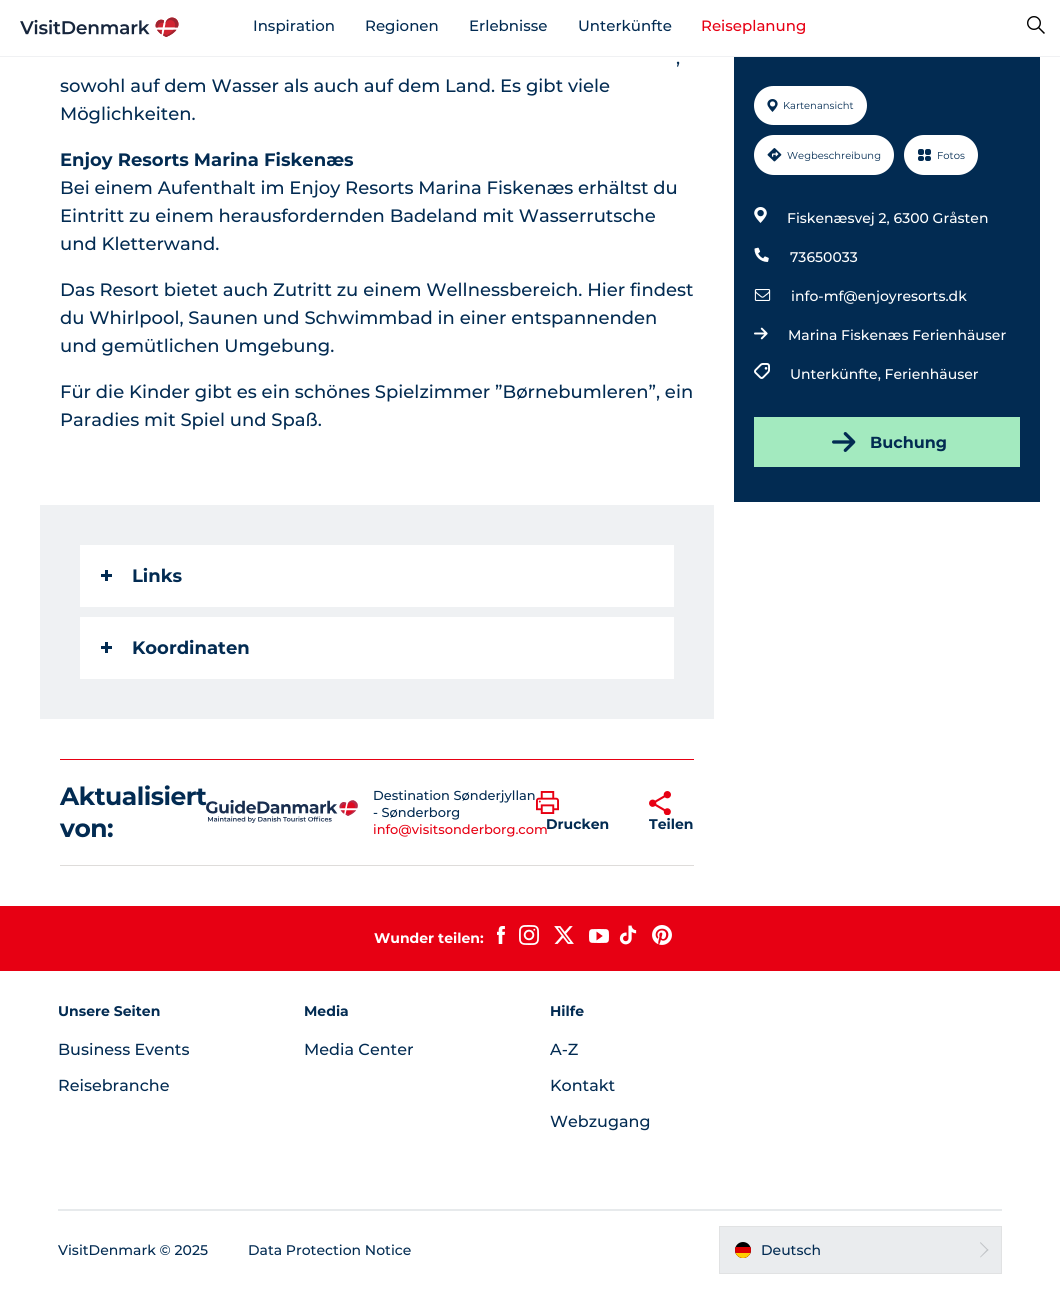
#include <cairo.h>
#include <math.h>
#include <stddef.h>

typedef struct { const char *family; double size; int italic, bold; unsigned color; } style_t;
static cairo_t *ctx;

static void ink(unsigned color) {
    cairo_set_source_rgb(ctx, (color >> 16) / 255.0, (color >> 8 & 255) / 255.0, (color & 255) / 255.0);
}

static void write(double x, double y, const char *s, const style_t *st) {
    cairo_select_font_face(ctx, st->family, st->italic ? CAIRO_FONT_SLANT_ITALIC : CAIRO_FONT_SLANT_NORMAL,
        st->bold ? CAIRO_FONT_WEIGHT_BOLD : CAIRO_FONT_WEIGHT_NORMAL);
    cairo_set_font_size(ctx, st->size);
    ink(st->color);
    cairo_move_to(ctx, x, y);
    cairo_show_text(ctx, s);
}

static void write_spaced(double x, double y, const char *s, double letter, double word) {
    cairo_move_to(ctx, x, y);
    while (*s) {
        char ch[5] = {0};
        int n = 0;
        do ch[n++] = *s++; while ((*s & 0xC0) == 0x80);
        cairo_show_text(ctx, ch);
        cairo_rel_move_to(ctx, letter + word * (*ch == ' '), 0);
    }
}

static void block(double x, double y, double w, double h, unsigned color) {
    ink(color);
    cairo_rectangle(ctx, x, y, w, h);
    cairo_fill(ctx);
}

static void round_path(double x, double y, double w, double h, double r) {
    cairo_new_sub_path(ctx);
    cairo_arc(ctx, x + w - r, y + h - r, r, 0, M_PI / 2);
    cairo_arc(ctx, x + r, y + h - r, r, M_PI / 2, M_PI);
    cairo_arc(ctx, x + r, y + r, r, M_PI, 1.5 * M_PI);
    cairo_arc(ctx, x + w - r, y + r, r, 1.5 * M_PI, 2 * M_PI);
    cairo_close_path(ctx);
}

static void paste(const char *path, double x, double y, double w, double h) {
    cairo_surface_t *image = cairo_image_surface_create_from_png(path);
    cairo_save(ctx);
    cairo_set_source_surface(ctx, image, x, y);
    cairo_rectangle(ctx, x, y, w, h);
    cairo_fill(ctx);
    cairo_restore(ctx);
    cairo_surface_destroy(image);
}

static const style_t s1 = {"Montserrat Medium", 15, 0, 0, 0x022b52};
static const style_t s2 = {"Montserrat Medium", 15, 0, 0, 0xe70013};
static const style_t s3 = {"Montserrat Medium", 18, 0, 0, 0x022b52};
static const style_t s4 = {"Montserrat", 18, 0, 1, 0x022b52};
static const style_t s5 = {"Montserrat Medium", 13, 0, 0, 0x022b52};
static const style_t s6 = {"Montserrat Medium", 13, 0, 0, 0xe70013};
static const style_t s7 = {"Montserrat", 14, 0, 1, 0x022b52};
static const style_t s8 = {"Montserrat", 10, 0, 0, 0x022b52};
static const style_t s9 = {"Montserrat Medium", 14, 0, 0, 0xffffff};
static const style_t s10 = {"Montserrat", 16, 0, 1, 0x022b52};
static const style_t s11 = {"Montserrat", 14, 0, 1, 0xffffff};
static const style_t s12 = {"Montserrat Medium", 16, 0, 0, 0x022b52};
static const style_t s13 = {"Montserrat Medium", 14, 0, 0, 0x022b52};

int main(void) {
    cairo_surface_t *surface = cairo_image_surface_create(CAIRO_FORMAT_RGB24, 1060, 1289);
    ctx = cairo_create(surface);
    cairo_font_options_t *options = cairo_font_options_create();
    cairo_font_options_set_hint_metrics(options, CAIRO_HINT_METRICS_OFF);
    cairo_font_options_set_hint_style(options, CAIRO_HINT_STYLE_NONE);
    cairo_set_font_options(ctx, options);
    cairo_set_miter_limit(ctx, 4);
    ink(0xffffff);
    cairo_paint(ctx);
    block(0, 56, 1060, 1, 0xf0f1f3);
    paste("pic1.png", 20, 17, 159, 20);
    write(253, 31, "Inspiration", &s1);
    write(365, 31, "Regionen", &s1);
    write(469, 31, "Erlebnisse", &s1);
    write(578, 31, "Unterkünfte", &s1);
    write(701, 31, "Reiseplanung", &s2);
    paste("pic2.png", 1027, 16, 18, 18);
    write(676, 64, ",", &s3);
    write(60, 92, "sowohl auf dem Wasser als auch auf dem Land. Es gibt viele", &s3);
    write(60, 120, "Möglichkeiten.", &s3);
    write(60, 166, "Enjoy Resorts Marina Fiskenæs", &s4);
    write(60, 194, "Bei einem Aufenthalt im Enjoy Resorts Marina Fiskenæs erhältst du", &s3);
    write(60, 222, "Eintritt zu einem herausfordernden Badeland mit Wasserrutsche", &s3);
    write(60, 250, "und Kletterwand.", &s3);
    write(60, 296, "Das Resort bietet auch Zutritt zu einem Wellnessbereich. Hier findest", &s3);
    write(60, 324, "du Whirlpool, Saunen und Schwimmbad in einer entspannenden", &s3);
    write(60, 352, "und gemütlichen Umgebung.", &s3);
    write(60, 398, "Für die Kinder gibt es ein schönes Spielzimmer ”Børnebumleren”, ein", &s3);
    write(60, 426, "Paradies mit Spiel und Spaß.", &s3);
    block(40, 505, 674, 214, 0xeff1f3);
    block(80, 545, 594, 62, 0xffffff);
    block(101, 574, 11, 3, 0x022b52);
    block(105, 570, 3, 11, 0x022b52);
    write(132, 582, "Links", &s4);
    block(80, 617, 594, 62, 0xffffff);
    block(101, 646, 11, 3, 0x022b52);
    block(105, 642, 3, 11, 0x022b52);
    write(132, 654, "Koordinaten", &s4);
    block(60, 759, 634, 1, 0xe70013);
    block(60, 865, 634, 1, 0xdedcda);
    cairo_set_font_size(ctx, 25);
    ink(0x022b52);
    write_spaced(60, 805, "Aktualisiert", -0.5, 0);
    write_spaced(60, 837, "von:", -0.5, 0);
    paste("pic3.png", 206, 800, 152, 23);
    write(373, 800, "Destination Sønderjyllan", &s5);
    write(373, 817, "- Sønderborg", &s5);
    write(373, 834, "info@visitsonderborg.com", &s6);
    paste("pic4.png", 536, 791, 23, 23);
    write(546, 829, "Drucken", &s7);
    paste("pic5.png", 649, 791, 22, 24);
    write(649, 829, "Teilen", &s7);
    block(734, 57, 306, 445, 0x022b52);
    ink(0xffffff);
    round_path(754, 86, 113, 39, 19.5);
    cairo_fill(ctx);
    paste("pic6.png", 767, 99, 11, 13);
    write(783, 109, "Kartenansicht", &s8);
    ink(0xffffff);
    round_path(754, 135, 140, 40, 20);
    cairo_fill(ctx);
    paste("pic7.png", 767, 148, 15, 14);
    write(787, 159, "Wegbeschreibung", &s8);
    ink(0xffffff);
    round_path(904, 135, 74, 40, 20);
    cairo_fill(ctx);
    paste("pic8.png", 918, 149, 13, 12);
    write(937, 159, "Fotos", &s8);
    paste("pic9.png", 754, 207, 13, 16);
    write(787, 223, "Fiskenæsvej 2, 6300 Gråsten", &s9);
    paste("pic10.png", 754, 247, 15, 15);
    write(790, 262, "73650033", &s9);
    paste("pic11.png", 754, 289, 17, 12);
    write(791, 301, "info-mf@enjoyresorts.dk", &s9);
    paste("pic12.png", 754, 327, 14, 13);
    write(788, 340, "Marina Fiskenæs Ferienhäuser", &s9);
    paste("pic13.png", 754, 363, 16, 16);
    write(790, 379, "Unterkünfte, Ferienhäuser", &s9);
    block(754, 417, 266, 50, 0xa3eabf);
    paste("pic14.png", 832, 432, 24, 20);
    write(870, 448, "Buchung", &s10);
    block(0, 906, 1060, 65, 0xe70013);
    write(374, 943, "Wunder teilen:", &s11);
    paste("pic15.png", 497, 926, 8, 18);
    paste("pic16.png", 519, 925, 20, 20);
    paste("pic17.png", 554, 926, 20, 18);
    paste("pic18.png", 589, 929, 20, 14);
    paste("pic19.png", 619, 925, 18, 20);
    paste("pic20.png", 652, 925, 20, 20);
    write(58, 1016, "Unsere Seiten", &s7);
    write(58, 1055, "Business Events", &s12);
    write(58, 1091, "Reisebranche", &s12);
    write(304, 1016, "Media", &s7);
    write(304, 1055, "Media Center", &s12);
    write(550, 1016, "Hilfe", &s7);
    write(550, 1055, "A-Z", &s12);
    write(550, 1091, "Kontakt", &s12);
    write(550, 1127, "Webzugang", &s12);
    block(58, 1209, 944, 2, 0xe7eaec);
    write(58, 1255, "VisitDenmark © 2025", &s13);
    write(248, 1255, "Data Protection Notice", &s13);
    ink(0xeaecee);
    cairo_rectangle(ctx, 719.5, 1226.5, 282, 47);
    cairo_fill_preserve(ctx);
    ink(0xe1e2e3);
    cairo_set_line_width(ctx, 1);
    cairo_stroke(ctx);
    ink(0x000000);
    cairo_arc(ctx, 743, 1250, 8, 0, 2 * M_PI);
    cairo_fill(ctx);
    cairo_save(ctx);
    round_path(735, 1242, 16, 16, 8);
    cairo_clip(ctx);
    ink(0xdd0000);
    cairo_new_path(ctx);
    cairo_move_to(ctx, 735, 1247);
    cairo_line_to(ctx, 751, 1247);
    cairo_line_to(ctx, 751, 1250);
    cairo_curve_to(ctx, 751, 1254.5, 747.5, 1258, 743, 1258);
    cairo_curve_to(ctx, 738.5, 1258, 735, 1254.5, 735, 1250);
    cairo_close_path(ctx);
    cairo_fill(ctx);
    block(735, 1253, 16, 5, 0xffce00);
    cairo_restore(ctx);
    write(761, 1255, "Deutsch", &s13);
    ink(0xc1c4c7);
    cairo_new_path(ctx);
    cairo_move_to(ctx, 980.5, 1242);
    cairo_line_to(ctx, 988.5, 1250);
    cairo_line_to(ctx, 987.5, 1250.5);
    cairo_line_to(ctx, 980, 1243);
    cairo_close_path(ctx);
    cairo_fill(ctx);
    cairo_new_path(ctx);
    cairo_move_to(ctx, 987.5, 1249);
    cairo_line_to(ctx, 988.5, 1250);
    cairo_line_to(ctx, 980.5, 1257.5);
    cairo_line_to(ctx, 980, 1257);
    cairo_close_path(ctx);
    cairo_fill(ctx);
    cairo_surface_write_to_png(surface, "screenshot.png");
    cairo_font_options_destroy(options);
    cairo_destroy(ctx);
    cairo_surface_destroy(surface);
    return 0;
}
